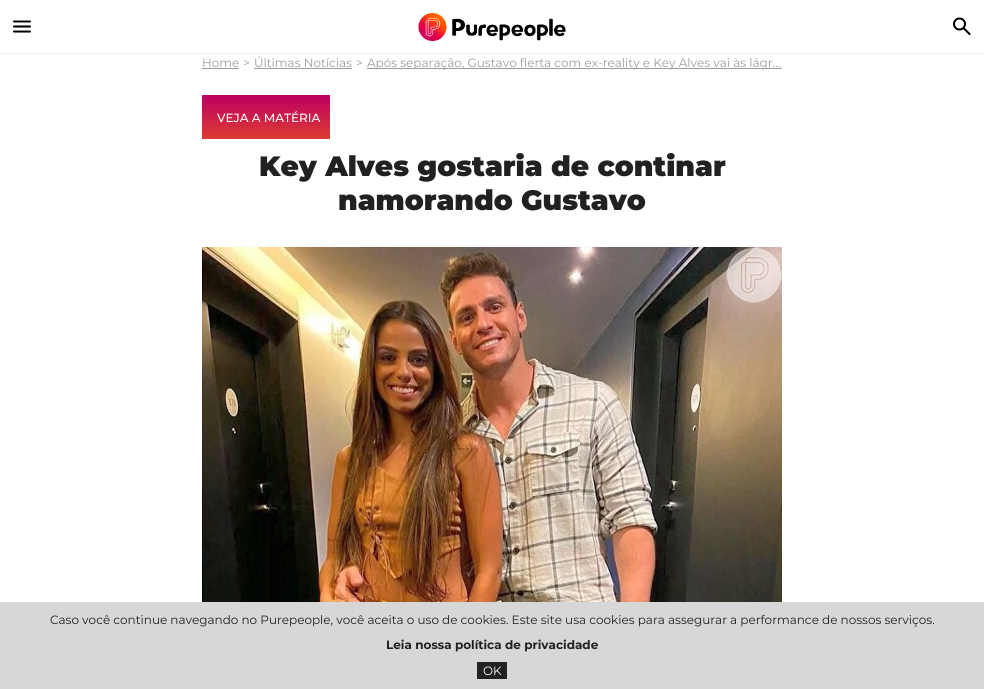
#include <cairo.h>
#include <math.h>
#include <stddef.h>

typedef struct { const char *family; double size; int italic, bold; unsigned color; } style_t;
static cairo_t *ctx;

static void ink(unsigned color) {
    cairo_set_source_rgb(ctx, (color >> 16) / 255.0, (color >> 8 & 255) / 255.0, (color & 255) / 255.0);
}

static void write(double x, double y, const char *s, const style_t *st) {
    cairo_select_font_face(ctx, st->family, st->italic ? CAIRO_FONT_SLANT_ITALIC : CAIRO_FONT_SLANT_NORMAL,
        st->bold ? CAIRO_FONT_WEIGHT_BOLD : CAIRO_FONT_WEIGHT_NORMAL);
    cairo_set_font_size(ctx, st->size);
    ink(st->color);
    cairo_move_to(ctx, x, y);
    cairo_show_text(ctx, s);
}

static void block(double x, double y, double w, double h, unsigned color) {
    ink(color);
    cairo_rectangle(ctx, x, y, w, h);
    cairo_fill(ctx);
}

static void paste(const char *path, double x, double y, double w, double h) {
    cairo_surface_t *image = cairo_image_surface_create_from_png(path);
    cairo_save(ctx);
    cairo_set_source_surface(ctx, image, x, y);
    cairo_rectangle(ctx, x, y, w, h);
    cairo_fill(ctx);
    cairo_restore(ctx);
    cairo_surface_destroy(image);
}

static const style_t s1 = {"Montserrat", 12, 0, 0, 0x9c9c9c};
static const style_t s2 = {"Montserrat Medium", 12, 0, 0, 0xffffff};
static const style_t s3 = {"Montserrat Black", 28, 0, 0, 0x212121};
static const style_t s4 = {"Montserrat", 12, 0, 0, 0x212121};
static const style_t s5 = {"Montserrat", 12, 0, 1, 0x212121};
static const style_t s6 = {"Montserrat", 12, 0, 0, 0xffffff};

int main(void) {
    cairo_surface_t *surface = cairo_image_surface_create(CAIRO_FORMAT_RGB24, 984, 689);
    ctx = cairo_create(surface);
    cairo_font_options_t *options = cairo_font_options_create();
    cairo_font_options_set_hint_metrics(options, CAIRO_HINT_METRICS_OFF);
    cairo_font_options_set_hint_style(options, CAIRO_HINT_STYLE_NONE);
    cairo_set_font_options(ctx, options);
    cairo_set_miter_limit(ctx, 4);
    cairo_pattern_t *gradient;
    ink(0xffffff);
    cairo_paint(ctx);
    block(0, 53, 984, 1, 0xeeeeee);
    paste("pic1.png", 13, 20, 18, 13);
    paste("pic2.png", 418, 13, 148, 28);
    paste("pic3.png", 953, 17, 18, 19);
    write(202, 67, "Home", &s1);
    block(202, 68, 37, 1, 0x9c9c9c);
    write(243, 67, ">", &s1);
    write(254, 67, "Últimas Notícias", &s1);
    block(254, 68, 98, 1, 0x9c9c9c);
    write(356, 67, ">", &s1);
    block(367, 68, 415, 1, 0x9c9c9c);
    write(367, 67, "Após separação, Gustavo flerta com ex-reality e Key Alves vai às lágr…", &s1);
    gradient = cairo_pattern_create_linear(266, 95, 266, 183);
    cairo_pattern_add_color_stop_rgba(gradient, 0, 0.737, 0, 0.384, 1);
    cairo_pattern_add_color_stop_rgba(gradient, 1, 1, 0.463, 0, 1);
    cairo_set_source(ctx, gradient);
    cairo_pattern_destroy(gradient);
    cairo_rectangle(ctx, 202, 95, 128, 44);
    cairo_fill(ctx);
    write(217, 122, "VEJA A MATÉRIA", &s2);
    write(259, 176, "Key Alves gostaria de continar", &s3);
    write(338, 210, "namorando Gustavo", &s3);
    paste("pic4.png", 202, 247, 580, 355);
    block(0, 602, 984, 87, 0xd7d7d7);
    write(50, 624, "Caso você continue navegando no Purepeople, você aceita o uso de cookies. Este site usa cookies para assegurar a performance de nossos serviços.", &s4);
    write(386, 649, "Leia nossa política de privacidade", &s5);
    block(477, 662, 30, 17, 0x212121);
    write(483, 675, "OK", &s6);
    cairo_surface_write_to_png(surface, "screenshot.png");
    cairo_font_options_destroy(options);
    cairo_destroy(ctx);
    cairo_surface_destroy(surface);
    return 0;
}
